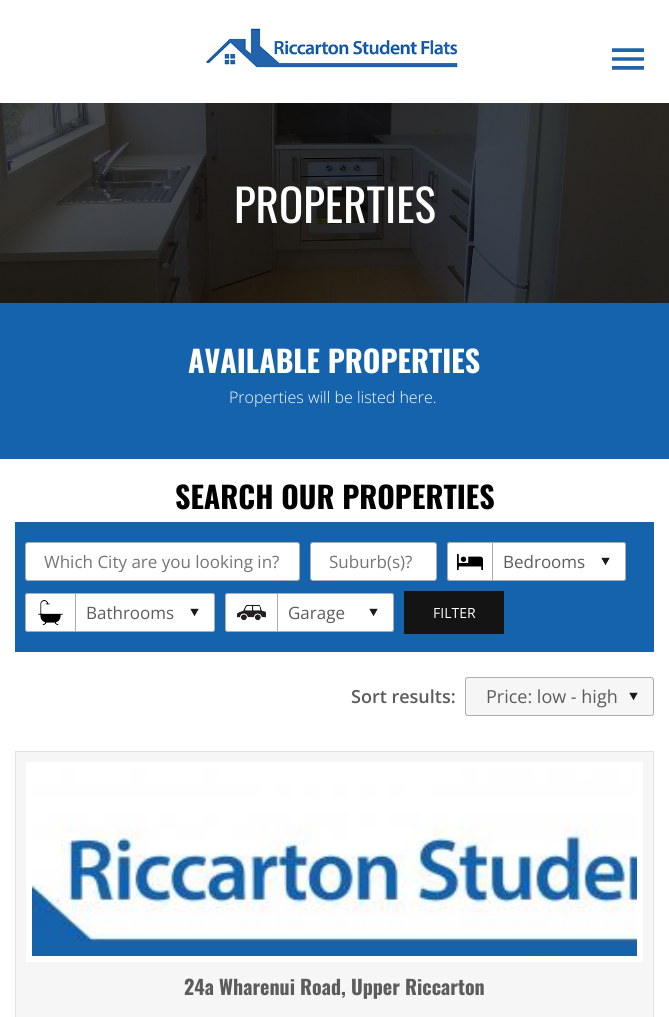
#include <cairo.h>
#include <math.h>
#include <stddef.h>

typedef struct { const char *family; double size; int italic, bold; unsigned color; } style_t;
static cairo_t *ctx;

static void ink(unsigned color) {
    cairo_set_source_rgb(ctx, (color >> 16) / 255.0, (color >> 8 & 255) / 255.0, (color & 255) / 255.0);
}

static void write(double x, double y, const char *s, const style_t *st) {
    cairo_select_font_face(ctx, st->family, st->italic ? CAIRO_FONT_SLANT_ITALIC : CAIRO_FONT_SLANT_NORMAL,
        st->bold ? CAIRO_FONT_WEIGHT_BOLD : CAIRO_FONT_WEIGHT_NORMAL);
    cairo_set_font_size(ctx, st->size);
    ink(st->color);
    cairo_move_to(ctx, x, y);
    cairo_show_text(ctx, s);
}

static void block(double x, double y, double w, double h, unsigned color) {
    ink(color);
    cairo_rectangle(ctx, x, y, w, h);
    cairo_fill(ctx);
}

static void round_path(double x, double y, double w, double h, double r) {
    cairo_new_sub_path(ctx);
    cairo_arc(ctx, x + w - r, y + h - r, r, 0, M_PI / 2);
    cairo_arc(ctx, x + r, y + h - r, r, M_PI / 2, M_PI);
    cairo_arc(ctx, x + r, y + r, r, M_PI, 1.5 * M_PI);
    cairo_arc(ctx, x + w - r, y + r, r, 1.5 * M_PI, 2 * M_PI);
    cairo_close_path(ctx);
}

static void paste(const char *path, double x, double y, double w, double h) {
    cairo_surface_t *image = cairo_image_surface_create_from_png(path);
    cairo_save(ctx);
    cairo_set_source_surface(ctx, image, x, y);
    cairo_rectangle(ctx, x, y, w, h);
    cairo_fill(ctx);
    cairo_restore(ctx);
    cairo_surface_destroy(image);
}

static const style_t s1 = {"Oswald", 45, 0, 0, 0xffffff};
static const style_t s2 = {"Oswald", 30, 0, 1, 0xffffff};
static const style_t s3 = {"Open Sans Light", 16, 0, 0, 0xffffff};
static const style_t s4 = {"Oswald", 30, 0, 1, 0x000000};
static const style_t s5 = {"Open Sans", 17, 0, 0, 0x757575};
static const style_t s6 = {"Open Sans", 17, 0, 0, 0x5c5c5c};
static const style_t s7 = {"Open Sans", 14, 0, 0, 0xffffff};
static const style_t s8 = {"Open Sans SemiBold", 18, 0, 0, 0x5c5c5c};
static const style_t s9 = {"Open Sans", 18, 0, 0, 0x5c5c5c};
static const style_t s10 = {"Oswald", 20, 0, 1, 0x5c5c5c};

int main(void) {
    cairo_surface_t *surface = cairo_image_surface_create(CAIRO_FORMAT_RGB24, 669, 1017);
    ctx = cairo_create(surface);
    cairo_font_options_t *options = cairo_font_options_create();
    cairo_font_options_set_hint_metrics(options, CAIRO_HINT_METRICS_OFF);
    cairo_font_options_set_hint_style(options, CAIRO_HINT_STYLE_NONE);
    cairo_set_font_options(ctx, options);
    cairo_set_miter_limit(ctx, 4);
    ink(0xffffff);
    cairo_paint(ctx);
    paste("pic1.png", 206, 28, 252, 40);
    paste("pic2.png", 612, 48, 32, 22);
    paste("pic3.png", 0, 103, 669, 200);
    write(234, 223, "PROPERTIES", &s1);
    block(0, 303, 669, 156, 0x1563ac);
    write(188, 373, "AVAILABLE PROPERTIES", &s2);
    write(229, 403, "Properties will be listed here.", &s3);
    write(175, 509, "SEARCH OUR PROPERTIES", &s4);
    block(15, 522, 639, 130, 0x1563ac);
    ink(0xffffff);
    round_path(25.5, 542.5, 274, 38, 2.5);
    cairo_fill_preserve(ctx);
    ink(0xacacac);
    cairo_set_line_width(ctx, 1);
    cairo_stroke(ctx);
    write(44, 568, "Which City are you looking in?", &s5);
    ink(0xffffff);
    round_path(310.5, 542.5, 126, 38, 2.5);
    cairo_fill_preserve(ctx);
    ink(0xacacac);
    cairo_stroke(ctx);
    write(329, 568, "Suburb(s)?", &s5);
    ink(0xffffff);
    cairo_new_path(ctx);
    cairo_move_to(ctx, 450, 542);
    cairo_line_to(ctx, 492, 542);
    cairo_line_to(ctx, 492, 581);
    cairo_line_to(ctx, 450, 581);
    cairo_curve_to(ctx, 448.5, 581, 447, 579.5, 447, 578);
    cairo_line_to(ctx, 447, 545);
    cairo_curve_to(ctx, 447, 543.5, 448.5, 542, 450, 542);
    cairo_close_path(ctx);
    cairo_fill(ctx);
    paste("pic4.png", 457, 553, 26, 18);
    ink(0xacacac);
    cairo_set_fill_rule(ctx, CAIRO_FILL_RULE_EVEN_ODD);
    cairo_new_path(ctx);
    cairo_move_to(ctx, 450, 542);
    cairo_line_to(ctx, 492, 542);
    cairo_line_to(ctx, 492, 581);
    cairo_line_to(ctx, 450, 581);
    cairo_curve_to(ctx, 448, 581, 447, 580, 447, 578);
    cairo_line_to(ctx, 447, 545);
    cairo_curve_to(ctx, 447, 543, 448, 542, 450, 542);
    cairo_close_path(ctx);
    cairo_move_to(ctx, 450, 543);
    cairo_line_to(ctx, 492, 543);
    cairo_line_to(ctx, 492, 580);
    cairo_line_to(ctx, 450, 580);
    cairo_curve_to(ctx, 449, 580, 448, 579, 448, 578);
    cairo_line_to(ctx, 448, 545);
    cairo_curve_to(ctx, 448, 544, 449, 543, 450, 543);
    cairo_close_path(ctx);
    cairo_fill(ctx);
    ink(0xffffff);
    cairo_new_path(ctx);
    cairo_move_to(ctx, 492, 542);
    cairo_line_to(ctx, 623, 542);
    cairo_curve_to(ctx, 624.5, 542, 626, 543.5, 626, 545);
    cairo_line_to(ctx, 626, 578);
    cairo_curve_to(ctx, 626, 579.5, 624.5, 581, 623, 581);
    cairo_line_to(ctx, 492, 581);
    cairo_close_path(ctx);
    cairo_fill(ctx);
    paste("pic5.png", 601, 557, 9, 8);
    cairo_new_path(ctx);
    cairo_move_to(ctx, 492.5, 542.5);
    cairo_line_to(ctx, 623, 542.5);
    cairo_curve_to(ctx, 624.5, 542.5, 625.5, 543.5, 625.5, 545);
    cairo_line_to(ctx, 625.5, 578);
    cairo_curve_to(ctx, 625.5, 579.5, 624.5, 580.5, 623, 580.5);
    cairo_line_to(ctx, 492.5, 580.5);
    cairo_close_path(ctx);
    ink(0xacacac);
    cairo_stroke(ctx);
    write(503, 568, "Bedrooms", &s6);
    ink(0xffffff);
    cairo_new_path(ctx);
    cairo_move_to(ctx, 28, 593);
    cairo_line_to(ctx, 75, 593);
    cairo_line_to(ctx, 75, 632);
    cairo_line_to(ctx, 28, 632);
    cairo_curve_to(ctx, 26.5, 632, 25, 630.5, 25, 629);
    cairo_line_to(ctx, 25, 596);
    cairo_curve_to(ctx, 25, 594.5, 26.5, 593, 28, 593);
    cairo_close_path(ctx);
    cairo_fill(ctx);
    paste("pic6.png", 38, 600, 25, 25);
    ink(0xacacac);
    cairo_new_path(ctx);
    cairo_move_to(ctx, 28, 593);
    cairo_line_to(ctx, 75, 593);
    cairo_line_to(ctx, 75, 632);
    cairo_line_to(ctx, 28, 632);
    cairo_curve_to(ctx, 26, 632, 25, 631, 25, 629);
    cairo_line_to(ctx, 25, 596);
    cairo_curve_to(ctx, 25, 594, 26, 593, 28, 593);
    cairo_close_path(ctx);
    cairo_move_to(ctx, 28, 594);
    cairo_line_to(ctx, 75, 594);
    cairo_line_to(ctx, 75, 631);
    cairo_line_to(ctx, 28, 631);
    cairo_curve_to(ctx, 27, 631, 26, 630, 26, 629);
    cairo_line_to(ctx, 26, 596);
    cairo_curve_to(ctx, 26, 595, 27, 594, 28, 594);
    cairo_close_path(ctx);
    cairo_fill(ctx);
    ink(0xffffff);
    cairo_new_path(ctx);
    cairo_move_to(ctx, 75, 593);
    cairo_line_to(ctx, 212, 593);
    cairo_curve_to(ctx, 213.5, 593, 215, 594.5, 215, 596);
    cairo_line_to(ctx, 215, 629);
    cairo_curve_to(ctx, 215, 630.5, 213.5, 632, 212, 632);
    cairo_line_to(ctx, 75, 632);
    cairo_close_path(ctx);
    cairo_fill(ctx);
    paste("pic5.png", 190, 608, 9, 8);
    cairo_new_path(ctx);
    cairo_move_to(ctx, 75.5, 593.5);
    cairo_line_to(ctx, 212, 593.5);
    cairo_curve_to(ctx, 213.5, 593.5, 214.5, 594.5, 214.5, 596);
    cairo_line_to(ctx, 214.5, 629);
    cairo_curve_to(ctx, 214.5, 630.5, 213.5, 631.5, 212, 631.5);
    cairo_line_to(ctx, 75.5, 631.5);
    cairo_close_path(ctx);
    ink(0xacacac);
    cairo_stroke(ctx);
    write(86, 619, "Bathrooms", &s6);
    ink(0xffffff);
    cairo_new_path(ctx);
    cairo_move_to(ctx, 228, 593);
    cairo_line_to(ctx, 277, 593);
    cairo_line_to(ctx, 277, 632);
    cairo_line_to(ctx, 228, 632);
    cairo_curve_to(ctx, 226.5, 632, 225, 630.5, 225, 629);
    cairo_line_to(ctx, 225, 596);
    cairo_curve_to(ctx, 225, 594.5, 226.5, 593, 228, 593);
    cairo_close_path(ctx);
    cairo_fill(ctx);
    paste("pic7.png", 237, 604, 29, 17);
    ink(0xacacac);
    cairo_new_path(ctx);
    cairo_move_to(ctx, 228, 593);
    cairo_line_to(ctx, 277, 593);
    cairo_line_to(ctx, 277, 632);
    cairo_line_to(ctx, 228, 632);
    cairo_curve_to(ctx, 226, 632, 225, 631, 225, 629);
    cairo_line_to(ctx, 225, 596);
    cairo_curve_to(ctx, 225, 594, 226, 593, 228, 593);
    cairo_close_path(ctx);
    cairo_move_to(ctx, 228, 594);
    cairo_line_to(ctx, 277, 594);
    cairo_line_to(ctx, 277, 631);
    cairo_line_to(ctx, 228, 631);
    cairo_curve_to(ctx, 227, 631, 226, 630, 226, 629);
    cairo_line_to(ctx, 226, 596);
    cairo_curve_to(ctx, 226, 595, 227, 594, 228, 594);
    cairo_close_path(ctx);
    cairo_fill(ctx);
    ink(0xffffff);
    cairo_new_path(ctx);
    cairo_move_to(ctx, 277, 593);
    cairo_line_to(ctx, 391, 593);
    cairo_curve_to(ctx, 392.5, 593, 394, 594.5, 394, 596);
    cairo_line_to(ctx, 394, 629);
    cairo_curve_to(ctx, 394, 630.5, 392.5, 632, 391, 632);
    cairo_line_to(ctx, 277, 632);
    cairo_close_path(ctx);
    cairo_fill(ctx);
    paste("pic5.png", 369, 608, 9, 8);
    cairo_new_path(ctx);
    cairo_move_to(ctx, 277.5, 593.5);
    cairo_line_to(ctx, 391, 593.5);
    cairo_curve_to(ctx, 392.5, 593.5, 393.5, 594.5, 393.5, 596);
    cairo_line_to(ctx, 393.5, 629);
    cairo_curve_to(ctx, 393.5, 630.5, 392.5, 631.5, 391, 631.5);
    cairo_line_to(ctx, 277.5, 631.5);
    cairo_close_path(ctx);
    ink(0xacacac);
    cairo_stroke(ctx);
    write(288, 619, "Garage", &s6);
    block(404, 591, 100, 43, 0x141415);
    write(433, 618, "FILTER", &s7);
    write(351, 703, "Sort results:", &s8);
    ink(0xf6f6f6);
    round_path(465, 677, 189, 39, 3);
    cairo_fill(ctx);
    paste("pic8.png", 629, 692, 9, 8);
    round_path(465.5, 677.5, 188, 38, 2.5);
    ink(0xacacac);
    cairo_stroke(ctx);
    write(486, 703, "Price: low - high", &s9);
    ink(0xf6f6f6);
    cairo_rectangle(ctx, 15.5, 751.5, 638, 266);
    cairo_fill_preserve(ctx);
    ink(0xe2e2e2);
    cairo_stroke(ctx);
    paste("pic9.png", 32, 768, 605, 188);
    cairo_rectangle(ctx, 29, 765, 611, 194);
    ink(0xffffff);
    cairo_set_line_width(ctx, 6);
    cairo_stroke(ctx);
    write(184, 995, "24a Wharenui Road, Upper Riccarton", &s10);
    cairo_surface_write_to_png(surface, "screenshot.png");
    cairo_font_options_destroy(options);
    cairo_destroy(ctx);
    cairo_surface_destroy(surface);
    return 0;
}
